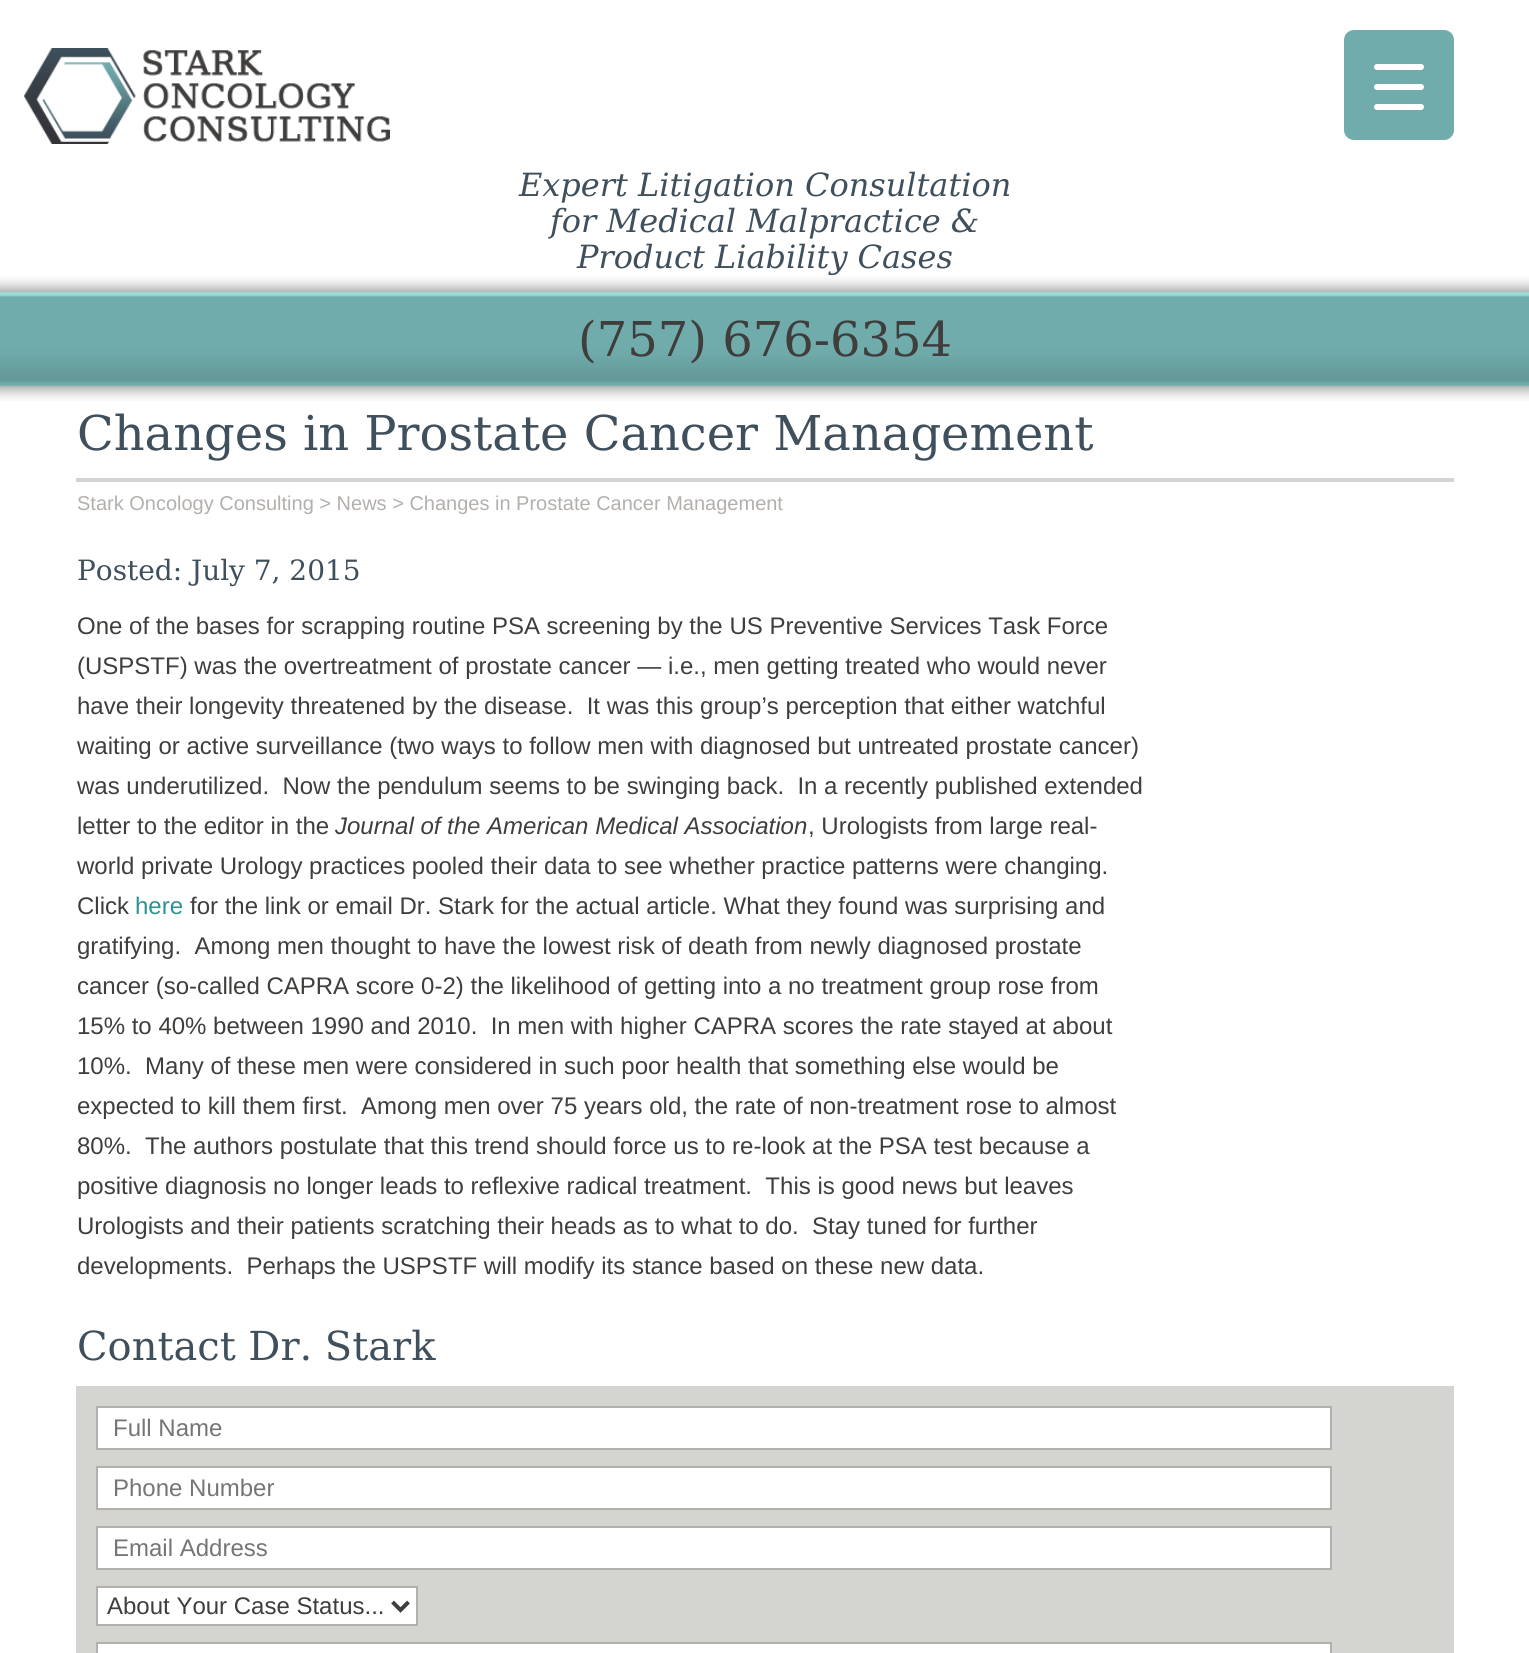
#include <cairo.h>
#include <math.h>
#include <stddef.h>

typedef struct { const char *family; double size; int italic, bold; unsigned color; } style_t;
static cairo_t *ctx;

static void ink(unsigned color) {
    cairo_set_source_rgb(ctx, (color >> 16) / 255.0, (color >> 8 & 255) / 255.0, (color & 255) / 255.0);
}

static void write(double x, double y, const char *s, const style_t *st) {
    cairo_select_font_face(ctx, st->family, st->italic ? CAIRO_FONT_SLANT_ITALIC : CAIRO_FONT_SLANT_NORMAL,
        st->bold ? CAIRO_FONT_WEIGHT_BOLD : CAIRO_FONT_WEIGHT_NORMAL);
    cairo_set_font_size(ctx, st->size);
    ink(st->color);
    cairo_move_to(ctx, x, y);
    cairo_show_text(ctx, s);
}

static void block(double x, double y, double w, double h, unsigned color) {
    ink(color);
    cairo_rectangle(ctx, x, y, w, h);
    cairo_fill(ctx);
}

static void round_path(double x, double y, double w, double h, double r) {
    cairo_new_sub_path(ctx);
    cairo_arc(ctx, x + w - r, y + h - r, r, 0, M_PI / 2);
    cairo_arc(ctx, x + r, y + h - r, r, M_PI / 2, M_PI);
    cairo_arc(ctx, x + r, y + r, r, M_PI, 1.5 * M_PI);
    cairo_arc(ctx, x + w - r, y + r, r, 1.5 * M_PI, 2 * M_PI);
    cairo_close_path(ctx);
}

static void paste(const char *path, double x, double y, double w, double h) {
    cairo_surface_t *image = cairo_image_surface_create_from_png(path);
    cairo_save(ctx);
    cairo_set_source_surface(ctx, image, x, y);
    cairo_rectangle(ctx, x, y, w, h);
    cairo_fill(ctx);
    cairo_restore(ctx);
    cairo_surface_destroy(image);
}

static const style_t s1 = {"DejaVu Serif", 32, 1, 0, 0x3f505c};
static const style_t s2 = {"DejaVu Serif", 48, 0, 0, 0x403e3c};
static const style_t s3 = {"DejaVu Serif", 48, 0, 0, 0x3f505c};
static const style_t s4 = {"Liberation Sans", 20, 0, 0, 0xb3afac};
static const style_t s5 = {"DejaVu Serif", 28, 0, 0, 0x3f505c};
static const style_t s6 = {"Liberation Sans", 24, 0, 0, 0x403e3c};
static const style_t s7 = {"Liberation Sans", 24, 1, 0, 0x403e3c};
static const style_t s8 = {"Liberation Sans", 24, 0, 0, 0x2c9294};
static const style_t s9 = {"DejaVu Serif", 40, 0, 0, 0x3f505c};
static const style_t s10 = {"Liberation Sans", 24, 0, 0, 0x757575};

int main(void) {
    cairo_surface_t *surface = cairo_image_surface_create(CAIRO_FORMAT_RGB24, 1529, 1653);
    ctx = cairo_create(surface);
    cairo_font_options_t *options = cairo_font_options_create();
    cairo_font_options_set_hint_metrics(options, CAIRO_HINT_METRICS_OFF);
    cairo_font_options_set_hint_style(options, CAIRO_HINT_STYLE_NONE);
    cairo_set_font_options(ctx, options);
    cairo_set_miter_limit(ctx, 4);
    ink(0xffffff);
    cairo_paint(ctx);
    ink(0x71acac);
    round_path(1344, 30, 110, 110, 10);
    cairo_fill(ctx);
    ink(0xffffff);
    round_path(1374, 84, 50, 6, 3);
    cairo_fill(ctx);
    round_path(1374, 64, 50, 6, 3);
    cairo_fill(ctx);
    round_path(1374, 104, 50, 6, 3);
    cairo_fill(ctx);
    paste("pic1.png", 0, 276, 1529, 125);
    paste("pic2.png", 24, 48, 366, 96);
    write(519, 196, "Expert Litigation Consultation", &s1);
    write(550, 232, "for Medical Malpractice &", &s1);
    write(577, 268, "Product Liability Cases", &s1);
    write(578, 356, "(757) 676-6354", &s2);
    block(76, 478, 1378, 4, 0xd4d4d1);
    write(77, 450, "Changes in Prostate Cancer Management", &s3);
    write(77, 510, "Stark Oncology Consulting > News > Changes in Prostate Cancer Management", &s4);
    write(77, 580, "Posted: July 7, 2015", &s5);
    write(77, 634, "One of the bases for scrapping routine PSA screening by the US Preventive Services Task Force", &s6);
    write(77, 674, "(USPSTF) was the overtreatment of prostate cancer — i.e., men getting treated who would never", &s6);
    write(77, 714, "have their longevity threatened by the disease.  It was this group’s perception that either watchful", &s6);
    write(77, 754, "waiting or active surveillance (two ways to follow men with diagnosed but untreated prostate cancer)", &s6);
    write(77, 794, "was underutilized.  Now the pendulum seems to be swinging back.  In a recently published extended", &s6);
    write(77, 834, "letter to the editor in the", &s6);
    write(335, 834, "Journal of the American Medical Association", &s7);
    write(808, 834, ", Urologists from large real-", &s6);
    write(77, 874, "world private Urology practices pooled their data to see whether practice patterns were changing.", &s6);
    write(77, 914, "Click", &s6);
    write(135, 914, "here", &s8);
    write(190, 914, "for the link or email Dr. Stark for the actual article. What they found was surprising and", &s6);
    write(77, 954, "gratifying.  Among men thought to have the lowest risk of death from newly diagnosed prostate", &s6);
    write(77, 994, "cancer (so-called CAPRA score 0-2) the likelihood of getting into a no treatment group rose from", &s6);
    write(77, 1034, "15% to 40% between 1990 and 2010.  In men with higher CAPRA scores the rate stayed at about", &s6);
    write(77, 1074, "10%.  Many of these men were considered in such poor health that something else would be", &s6);
    write(77, 1114, "expected to kill them first.  Among men over 75 years old, the rate of non-treatment rose to almost", &s6);
    write(77, 1154, "80%.  The authors postulate that this trend should force us to re-look at the PSA test because a", &s6);
    write(77, 1194, "positive diagnosis no longer leads to reflexive radical treatment.  This is good news but leaves", &s6);
    write(77, 1234, "Urologists and their patients scratching their heads as to what to do.  Stay tuned for further", &s6);
    write(77, 1274, "developments.  Perhaps the USPSTF will modify its stance based on these new data.", &s6);
    write(77, 1360, "Contact Dr. Stark", &s9);
    block(76, 1386, 1378, 267, 0xd4d4d1);
    ink(0xffffff);
    cairo_rectangle(ctx, 97, 1407, 1234, 42);
    cairo_fill_preserve(ctx);
    ink(0xb3afac);
    cairo_stroke(ctx);
    write(113, 1436, "Full Name", &s10);
    ink(0xffffff);
    cairo_rectangle(ctx, 97, 1467, 1234, 42);
    cairo_fill_preserve(ctx);
    ink(0xb3afac);
    cairo_stroke(ctx);
    write(113, 1496, "Phone Number", &s10);
    ink(0xffffff);
    cairo_rectangle(ctx, 97, 1527, 1234, 42);
    cairo_fill_preserve(ctx);
    ink(0xb3afac);
    cairo_stroke(ctx);
    write(113, 1556, "Email Address", &s10);
    ink(0xffffff);
    cairo_rectangle(ctx, 97, 1587, 320, 38);
    cairo_fill_preserve(ctx);
    ink(0xb3afac);
    cairo_stroke(ctx);
    cairo_new_path(ctx);
    cairo_move_to(ctx, 392.5, 1602);
    cairo_line_to(ctx, 400.5, 1610);
    cairo_line_to(ctx, 408.5, 1602);
    ink(0x403e3c);
    cairo_set_line_width(ctx, 4);
    cairo_stroke(ctx);
    write(107, 1614, "About Your Case Status...", &s6);
    ink(0xffffff);
    cairo_rectangle(ctx, 97, 1643, 1234, 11);
    cairo_fill_preserve(ctx);
    ink(0xb3afac);
    cairo_set_line_width(ctx, 2);
    cairo_stroke(ctx);
    cairo_surface_write_to_png(surface, "screenshot.png");
    cairo_font_options_destroy(options);
    cairo_destroy(ctx);
    cairo_surface_destroy(surface);
    return 0;
}
